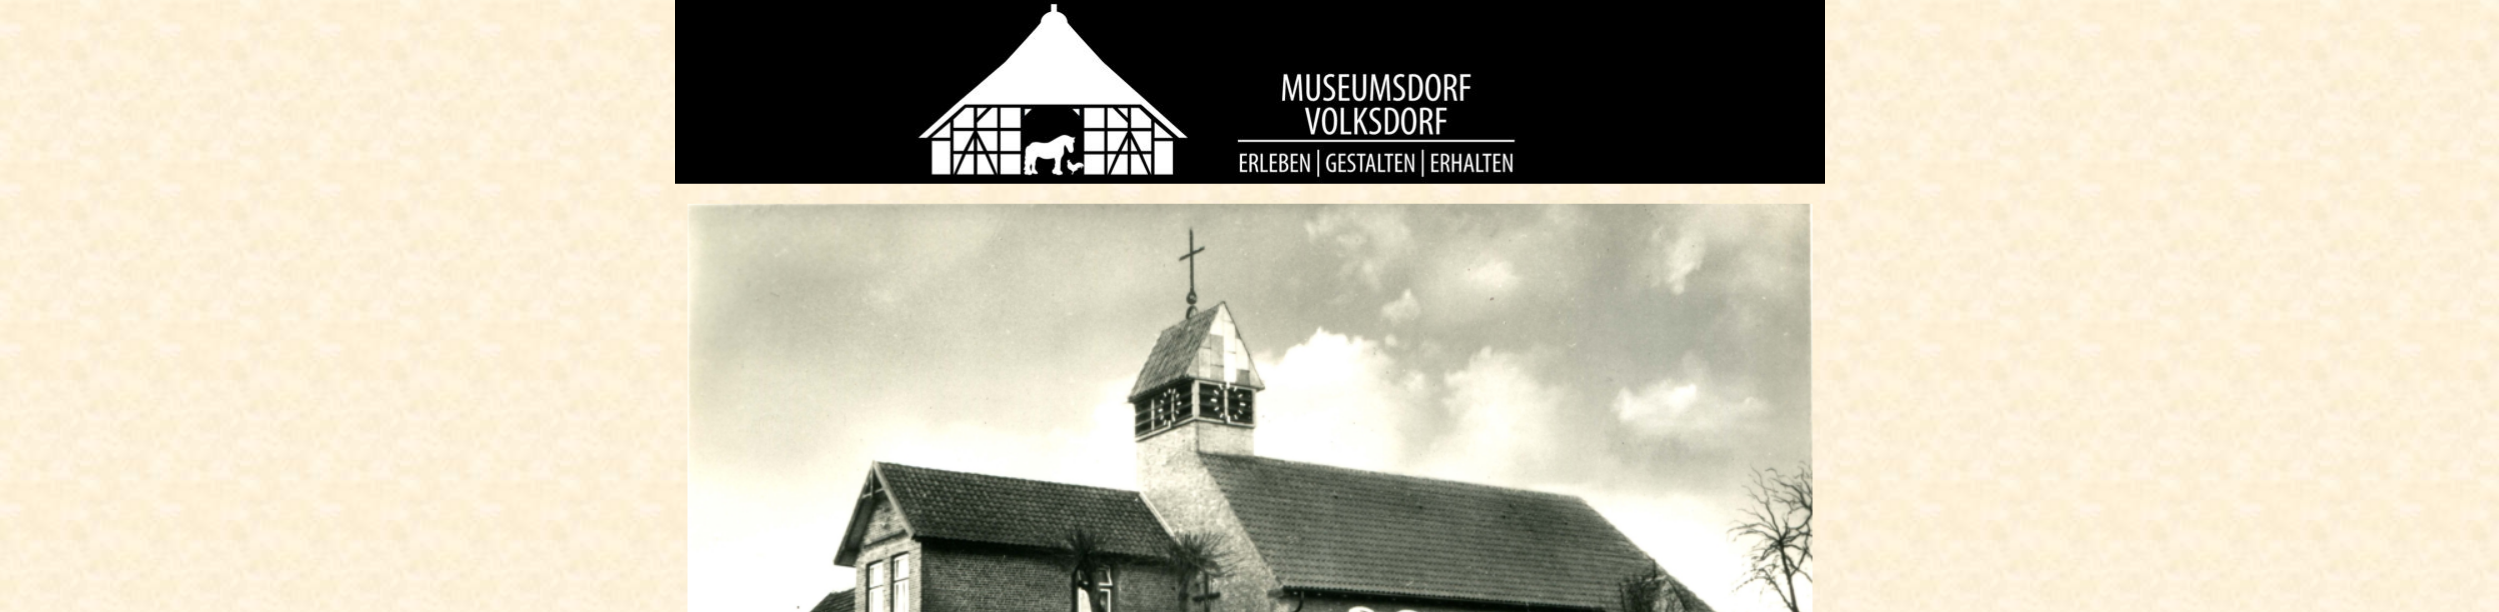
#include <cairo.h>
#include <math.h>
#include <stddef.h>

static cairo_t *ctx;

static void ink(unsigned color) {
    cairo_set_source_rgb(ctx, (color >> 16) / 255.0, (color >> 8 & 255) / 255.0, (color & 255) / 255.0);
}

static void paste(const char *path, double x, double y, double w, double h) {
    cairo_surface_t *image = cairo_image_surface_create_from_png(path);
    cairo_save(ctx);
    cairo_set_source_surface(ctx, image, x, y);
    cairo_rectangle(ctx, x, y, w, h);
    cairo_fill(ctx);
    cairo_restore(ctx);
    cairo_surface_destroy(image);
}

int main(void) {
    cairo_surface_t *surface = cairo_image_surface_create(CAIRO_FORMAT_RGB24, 2499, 612);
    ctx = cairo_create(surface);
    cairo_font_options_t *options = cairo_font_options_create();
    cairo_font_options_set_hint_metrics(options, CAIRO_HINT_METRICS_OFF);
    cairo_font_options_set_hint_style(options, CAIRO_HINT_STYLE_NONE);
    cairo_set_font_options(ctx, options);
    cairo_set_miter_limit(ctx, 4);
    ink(0xffffff);
    cairo_paint(ctx);
    paste("pic1.png", 0, 0, 2499, 612);
    paste("pic2.png", 675, 0, 1150, 184);
    paste("pic3.png", 687, 203, 1126, 409);
    cairo_surface_write_to_png(surface, "screenshot.png");
    cairo_font_options_destroy(options);
    cairo_destroy(ctx);
    cairo_surface_destroy(surface);
    return 0;
}
